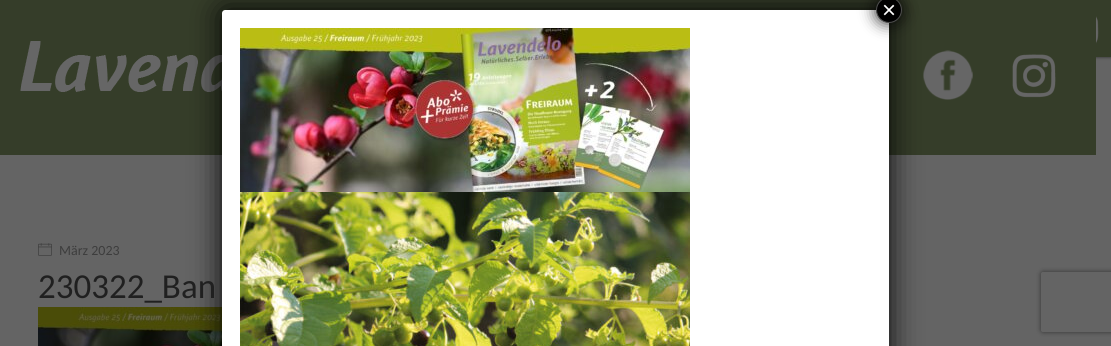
#include <cairo.h>
#include <math.h>
#include <stddef.h>

typedef struct { const char *family; double size; int italic, bold; unsigned color; } style_t;
static cairo_t *ctx;

static void ink(unsigned color) {
    cairo_set_source_rgb(ctx, (color >> 16) / 255.0, (color >> 8 & 255) / 255.0, (color & 255) / 255.0);
}

static void write(double x, double y, const char *s, const style_t *st) {
    cairo_select_font_face(ctx, st->family, st->italic ? CAIRO_FONT_SLANT_ITALIC : CAIRO_FONT_SLANT_NORMAL,
        st->bold ? CAIRO_FONT_WEIGHT_BOLD : CAIRO_FONT_WEIGHT_NORMAL);
    cairo_set_font_size(ctx, st->size);
    ink(st->color);
    cairo_move_to(ctx, x, y);
    cairo_show_text(ctx, s);
}

static void block(double x, double y, double w, double h, unsigned color) {
    ink(color);
    cairo_rectangle(ctx, x, y, w, h);
    cairo_fill(ctx);
}

static void round_path(double x, double y, double w, double h, double r) {
    cairo_new_sub_path(ctx);
    cairo_arc(ctx, x + w - r, y + h - r, r, 0, M_PI / 2);
    cairo_arc(ctx, x + r, y + h - r, r, M_PI / 2, M_PI);
    cairo_arc(ctx, x + r, y + r, r, M_PI, 1.5 * M_PI);
    cairo_arc(ctx, x + w - r, y + r, r, 1.5 * M_PI, 2 * M_PI);
    cairo_close_path(ctx);
}

static void blur_box(double x, double y, double w, double h, double r, double blur, double alpha) {
    cairo_push_group_with_content(ctx, CAIRO_CONTENT_ALPHA);
    cairo_set_operator(ctx, CAIRO_OPERATOR_SOURCE);
    for (int i = 15; i >= -15 && fmin(w, h) + blur * i / 3 > 0; i -= 2) {
        double e = blur * i / 6;
        cairo_set_source_rgba(ctx, 0, 0, 0, alpha * erfc((i - 1) / 8.5) / 2);
        round_path(x - e, y - e, w + 2 * e, h + 2 * e, fmax(0, fmin(r + e + blur * .6, fmin(w, h) / 2 + e)));
        cairo_fill(ctx);
    }
    cairo_pattern_t *soft = cairo_pop_group(ctx);
    cairo_mask(ctx, soft);
    cairo_pattern_destroy(soft);
}

static void paste(const char *path, double x, double y, double w, double h) {
    cairo_surface_t *image = cairo_image_surface_create_from_png(path);
    cairo_save(ctx);
    cairo_set_source_surface(ctx, image, x, y);
    cairo_rectangle(ctx, x, y, w, h);
    cairo_fill(ctx);
    cairo_restore(ctx);
    cairo_surface_destroy(image);
}

static const style_t s1 = {"Liberation Sans", 24, 0, 0, 0xffffff};
static const style_t s2 = {"Carlito", 14, 0, 0, 0x3d3d3d};
static const style_t s3 = {"Carlito", 35, 0, 0, 0x202020};

int main(void) {
    cairo_surface_t *surface = cairo_image_surface_create(CAIRO_FORMAT_RGB24, 1111, 346);
    ctx = cairo_create(surface);
    cairo_font_options_t *options = cairo_font_options_create();
    cairo_font_options_set_hint_metrics(options, CAIRO_HINT_METRICS_OFF);
    cairo_font_options_set_hint_style(options, CAIRO_HINT_STYLE_NONE);
    cairo_set_font_options(ctx, options);
    cairo_set_miter_limit(ctx, 4);
    ink(0x646464);
    cairo_paint(ctx);
    ink(0x000000);
    blur_box(0, 0, 1111, 57, 0, 1.5, 0.6);
    block(0, 0, 1096, 155, 0x353d29);
    paste("pic4.png", 20, 41, 202, 51);
    paste("pic5.png", 923, 50, 50, 50);
    paste("pic8.png", 38, 307, 184, 39);
    ink(0x020202);
    blur_box(222, 10, 667, 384, 3, 15, 1);
    ink(0xffffff);
    cairo_new_path(ctx);
    cairo_move_to(ctx, 225, 10);
    cairo_line_to(ctx, 886, 10);
    cairo_curve_to(ctx, 887.5, 10, 889, 11.5, 889, 13);
    cairo_line_to(ctx, 889, 346);
    cairo_line_to(ctx, 222, 346);
    cairo_line_to(ctx, 222, 13);
    cairo_curve_to(ctx, 222, 11.5, 223.5, 10, 225, 10);
    cairo_close_path(ctx);
    cairo_fill(ctx);
    ink(0x020202);
    blur_box(875, -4, 28, 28, 14, 7.5, 0.75);
    ink(0x000000);
    cairo_arc(ctx, 889, 10, 12.5, 0, 2 * M_PI);
    cairo_fill_preserve(ctx);
    ink(0x4f4f4f);
    cairo_set_line_width(ctx, 1);
    cairo_stroke(ctx);
    write(882, 18, "×", &s1);
    paste("pic1.png", 240, 28, 450, 164);
    paste("pic2.png", 240, 192, 450, 154);
    block(1096, 0, 15, 57, 0x353d29);
    paste("pic3.png", 1096, 16, 3, 28);
    paste("pic6.png", 1012, 54, 44, 44);
    paste("pic7.png", 38, 243, 14, 13);
    write(59, 255, "März 2023", &s2);
    write(38, 298, "230322_Ban", &s3);
    cairo_save(ctx);
    cairo_set_fill_rule(ctx, CAIRO_FILL_RULE_EVEN_ODD);
    cairo_new_path(ctx);
    cairo_move_to(ctx, 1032, 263);
    cairo_line_to(ctx, 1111, 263);
    cairo_line_to(ctx, 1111, 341);
    cairo_line_to(ctx, 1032, 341);
    cairo_close_path(ctx);
    cairo_move_to(ctx, 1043, 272);
    cairo_line_to(ctx, 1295, 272);
    cairo_curve_to(ctx, 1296, 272, 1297, 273, 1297, 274);
    cairo_line_to(ctx, 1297, 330);
    cairo_curve_to(ctx, 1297, 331, 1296, 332, 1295, 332);
    cairo_line_to(ctx, 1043, 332);
    cairo_curve_to(ctx, 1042, 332, 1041, 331, 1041, 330);
    cairo_line_to(ctx, 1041, 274);
    cairo_curve_to(ctx, 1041, 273, 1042, 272, 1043, 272);
    cairo_close_path(ctx);
    cairo_clip(ctx);
    ink(0x333333);
    blur_box(1041, 272, 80, 60, 2, 2.5, 1);
    cairo_restore(ctx);
    cairo_surface_write_to_png(surface, "screenshot.png");
    cairo_font_options_destroy(options);
    cairo_destroy(ctx);
    cairo_surface_destroy(surface);
    return 0;
}
